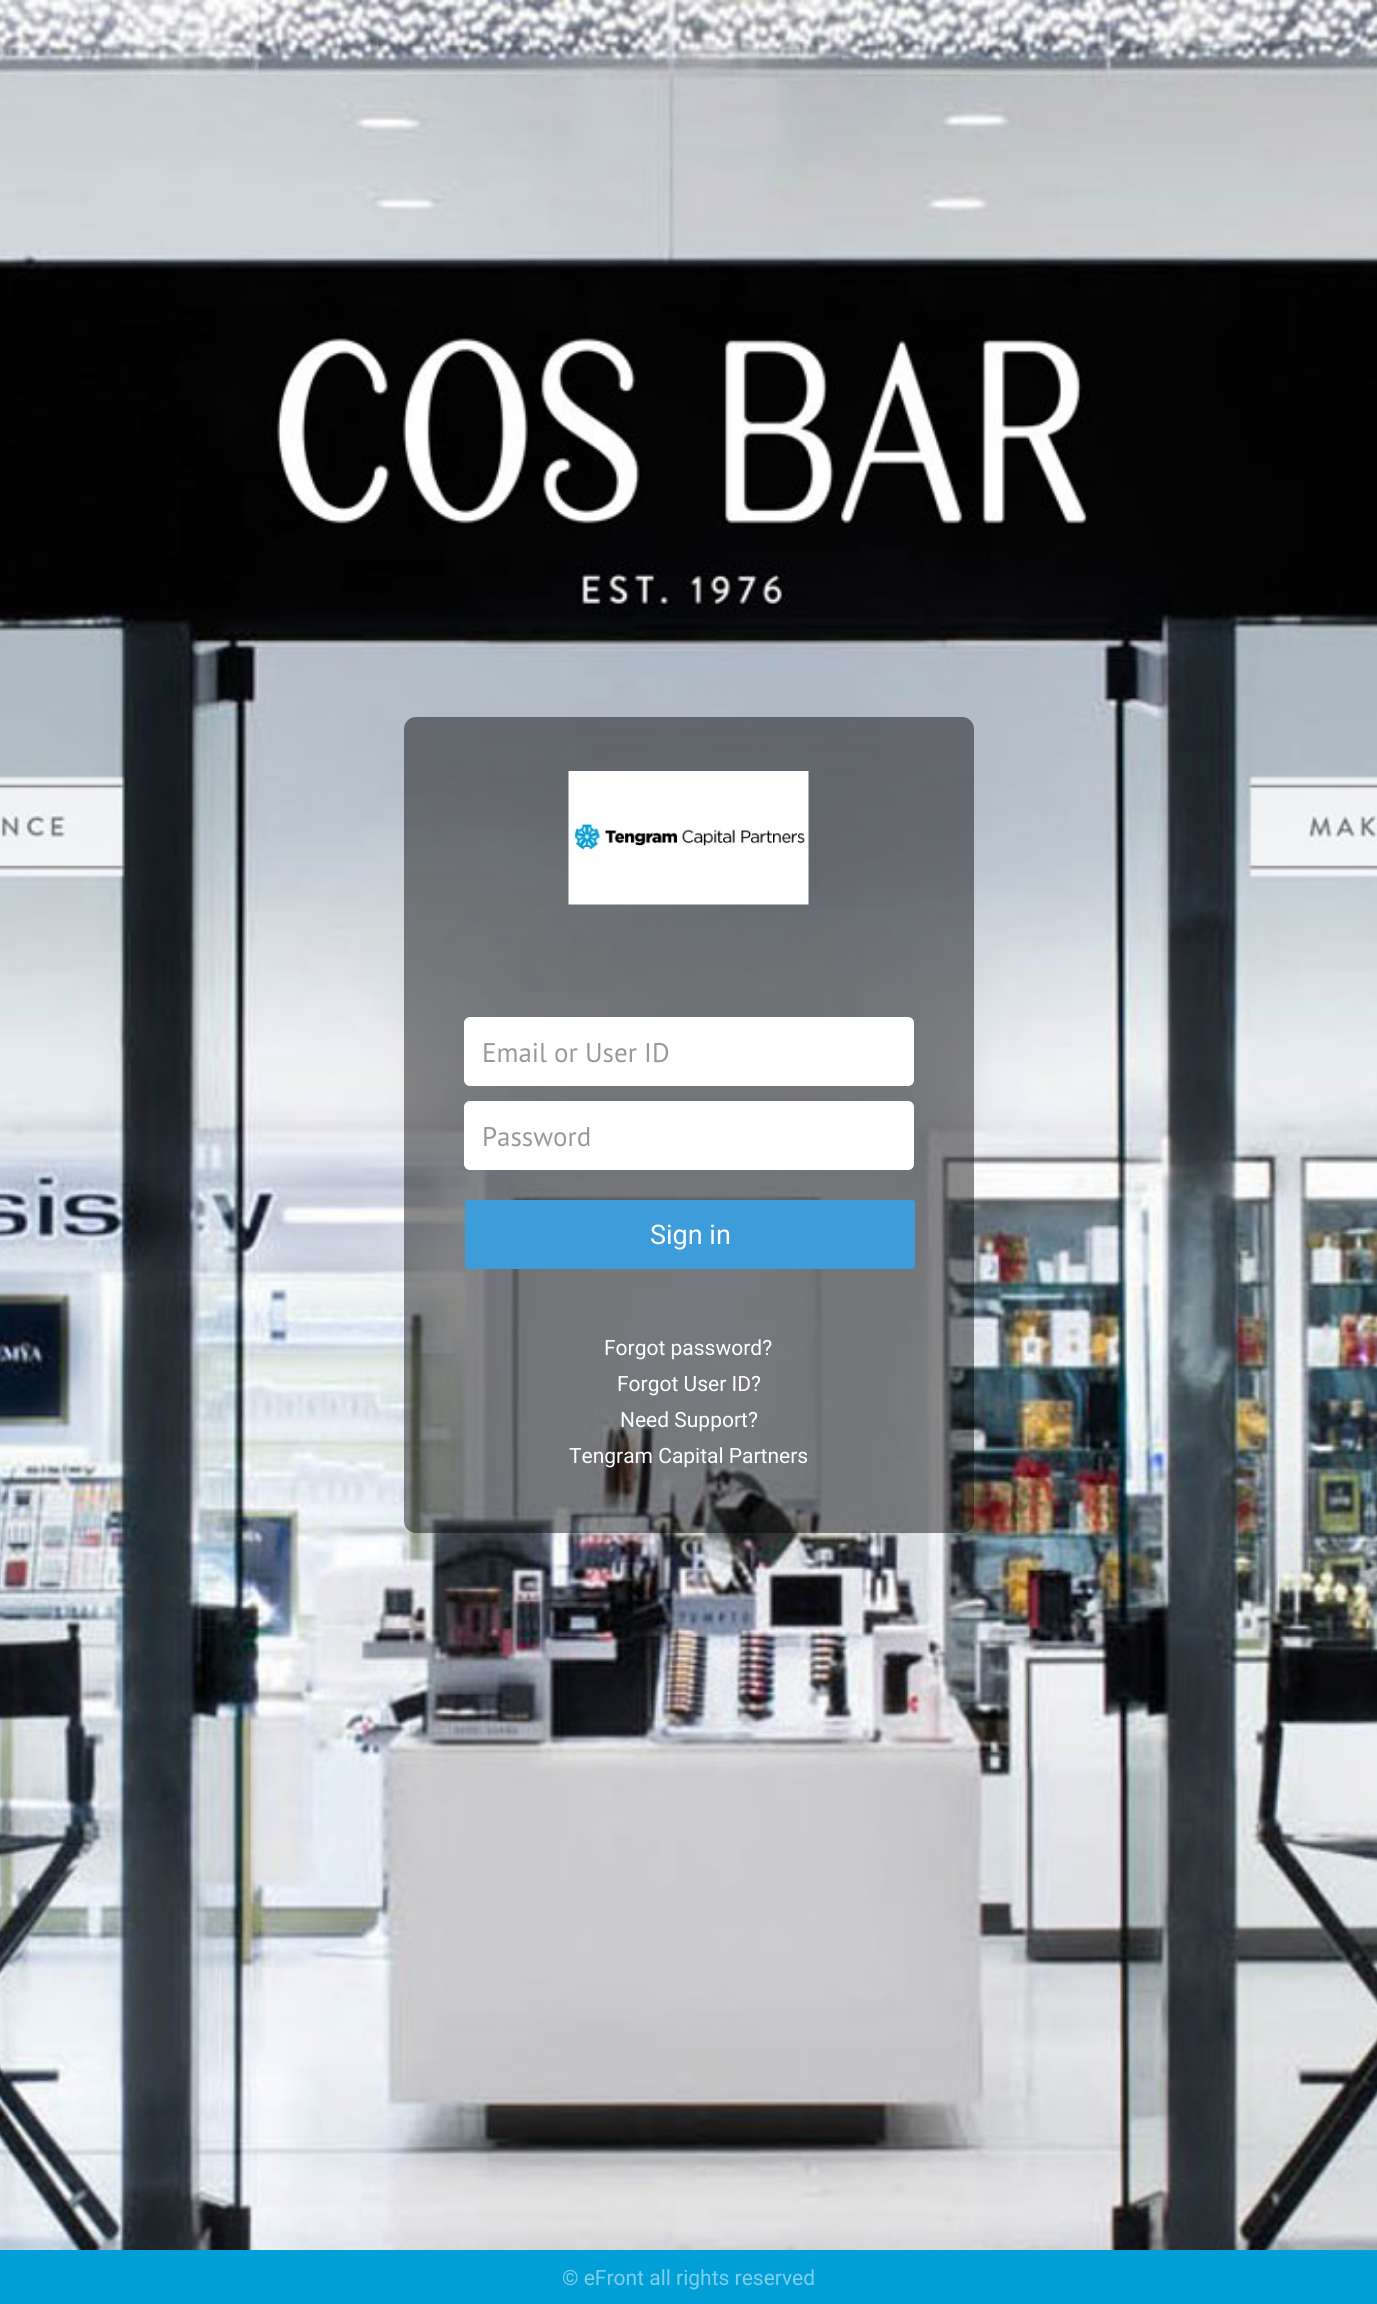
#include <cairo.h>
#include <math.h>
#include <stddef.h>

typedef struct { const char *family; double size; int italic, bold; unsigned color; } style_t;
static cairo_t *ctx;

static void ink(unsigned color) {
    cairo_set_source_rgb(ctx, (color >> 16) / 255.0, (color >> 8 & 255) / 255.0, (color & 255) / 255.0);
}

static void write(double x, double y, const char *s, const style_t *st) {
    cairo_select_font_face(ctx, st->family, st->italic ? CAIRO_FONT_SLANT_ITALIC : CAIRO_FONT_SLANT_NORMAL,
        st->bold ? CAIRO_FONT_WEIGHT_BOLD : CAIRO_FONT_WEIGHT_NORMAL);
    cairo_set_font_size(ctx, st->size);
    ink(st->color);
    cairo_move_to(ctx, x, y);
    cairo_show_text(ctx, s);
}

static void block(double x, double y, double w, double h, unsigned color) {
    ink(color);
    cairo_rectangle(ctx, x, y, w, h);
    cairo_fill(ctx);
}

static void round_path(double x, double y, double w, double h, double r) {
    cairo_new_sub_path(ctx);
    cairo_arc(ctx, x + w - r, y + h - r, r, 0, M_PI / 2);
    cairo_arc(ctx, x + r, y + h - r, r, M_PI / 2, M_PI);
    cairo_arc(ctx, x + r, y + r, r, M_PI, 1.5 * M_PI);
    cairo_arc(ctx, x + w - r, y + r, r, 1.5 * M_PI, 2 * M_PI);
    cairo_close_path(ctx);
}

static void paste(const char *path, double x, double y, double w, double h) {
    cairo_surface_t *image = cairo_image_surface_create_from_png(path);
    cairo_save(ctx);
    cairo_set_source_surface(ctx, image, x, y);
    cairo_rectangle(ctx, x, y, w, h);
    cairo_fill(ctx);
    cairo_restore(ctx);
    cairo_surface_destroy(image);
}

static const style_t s1 = {"PT Sans", 27, 0, 0, 0x999999};
static const style_t s2 = {"Roboto", 27, 0, 0, 0xffffff};
static const style_t s3 = {"Roboto", 21, 0, 0, 0xffffff};
static const style_t s4 = {"Roboto", 21, 0, 0, 0x80cfeb};

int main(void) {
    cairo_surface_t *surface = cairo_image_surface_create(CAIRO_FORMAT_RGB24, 1377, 2304);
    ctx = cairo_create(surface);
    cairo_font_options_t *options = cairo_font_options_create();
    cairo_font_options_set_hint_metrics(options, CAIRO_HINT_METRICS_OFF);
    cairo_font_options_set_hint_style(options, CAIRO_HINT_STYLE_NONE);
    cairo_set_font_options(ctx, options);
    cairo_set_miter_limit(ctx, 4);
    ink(0xffffff);
    cairo_paint(ctx);
    paste("pic1.png", 0, 0, 1377, 2250);
    cairo_set_source_rgba(ctx, 0, 0, 0, 0.45);
    round_path(404, 717, 570, 816, 12);
    cairo_fill(ctx);
    paste("pic2.png", 568, 771, 241, 134);
    ink(0xffffff);
    round_path(464, 1017, 450, 69, 6);
    cairo_fill(ctx);
    write(482, 1062, "Email or User ID", &s1);
    ink(0xffffff);
    round_path(464, 1101, 450, 69, 6);
    cairo_fill(ctx);
    write(482, 1146, "Password", &s1);
    ink(0x3d9cda);
    round_path(465, 1200, 450, 69, 3);
    cairo_fill(ctx);
    write(650, 1244, "Sign in", &s2);
    write(604, 1355, "Forgot password?", &s3);
    write(617, 1391, "Forgot User ID?", &s3);
    write(620, 1427, "Need Support?", &s3);
    write(569, 1463, "Tengram Capital Partners", &s3);
    block(0, 2250, 1377, 54, 0x009fd7);
    write(562, 2285, "© eFront all rights reserved", &s4);
    cairo_surface_write_to_png(surface, "screenshot.png");
    cairo_font_options_destroy(options);
    cairo_destroy(ctx);
    cairo_surface_destroy(surface);
    return 0;
}
